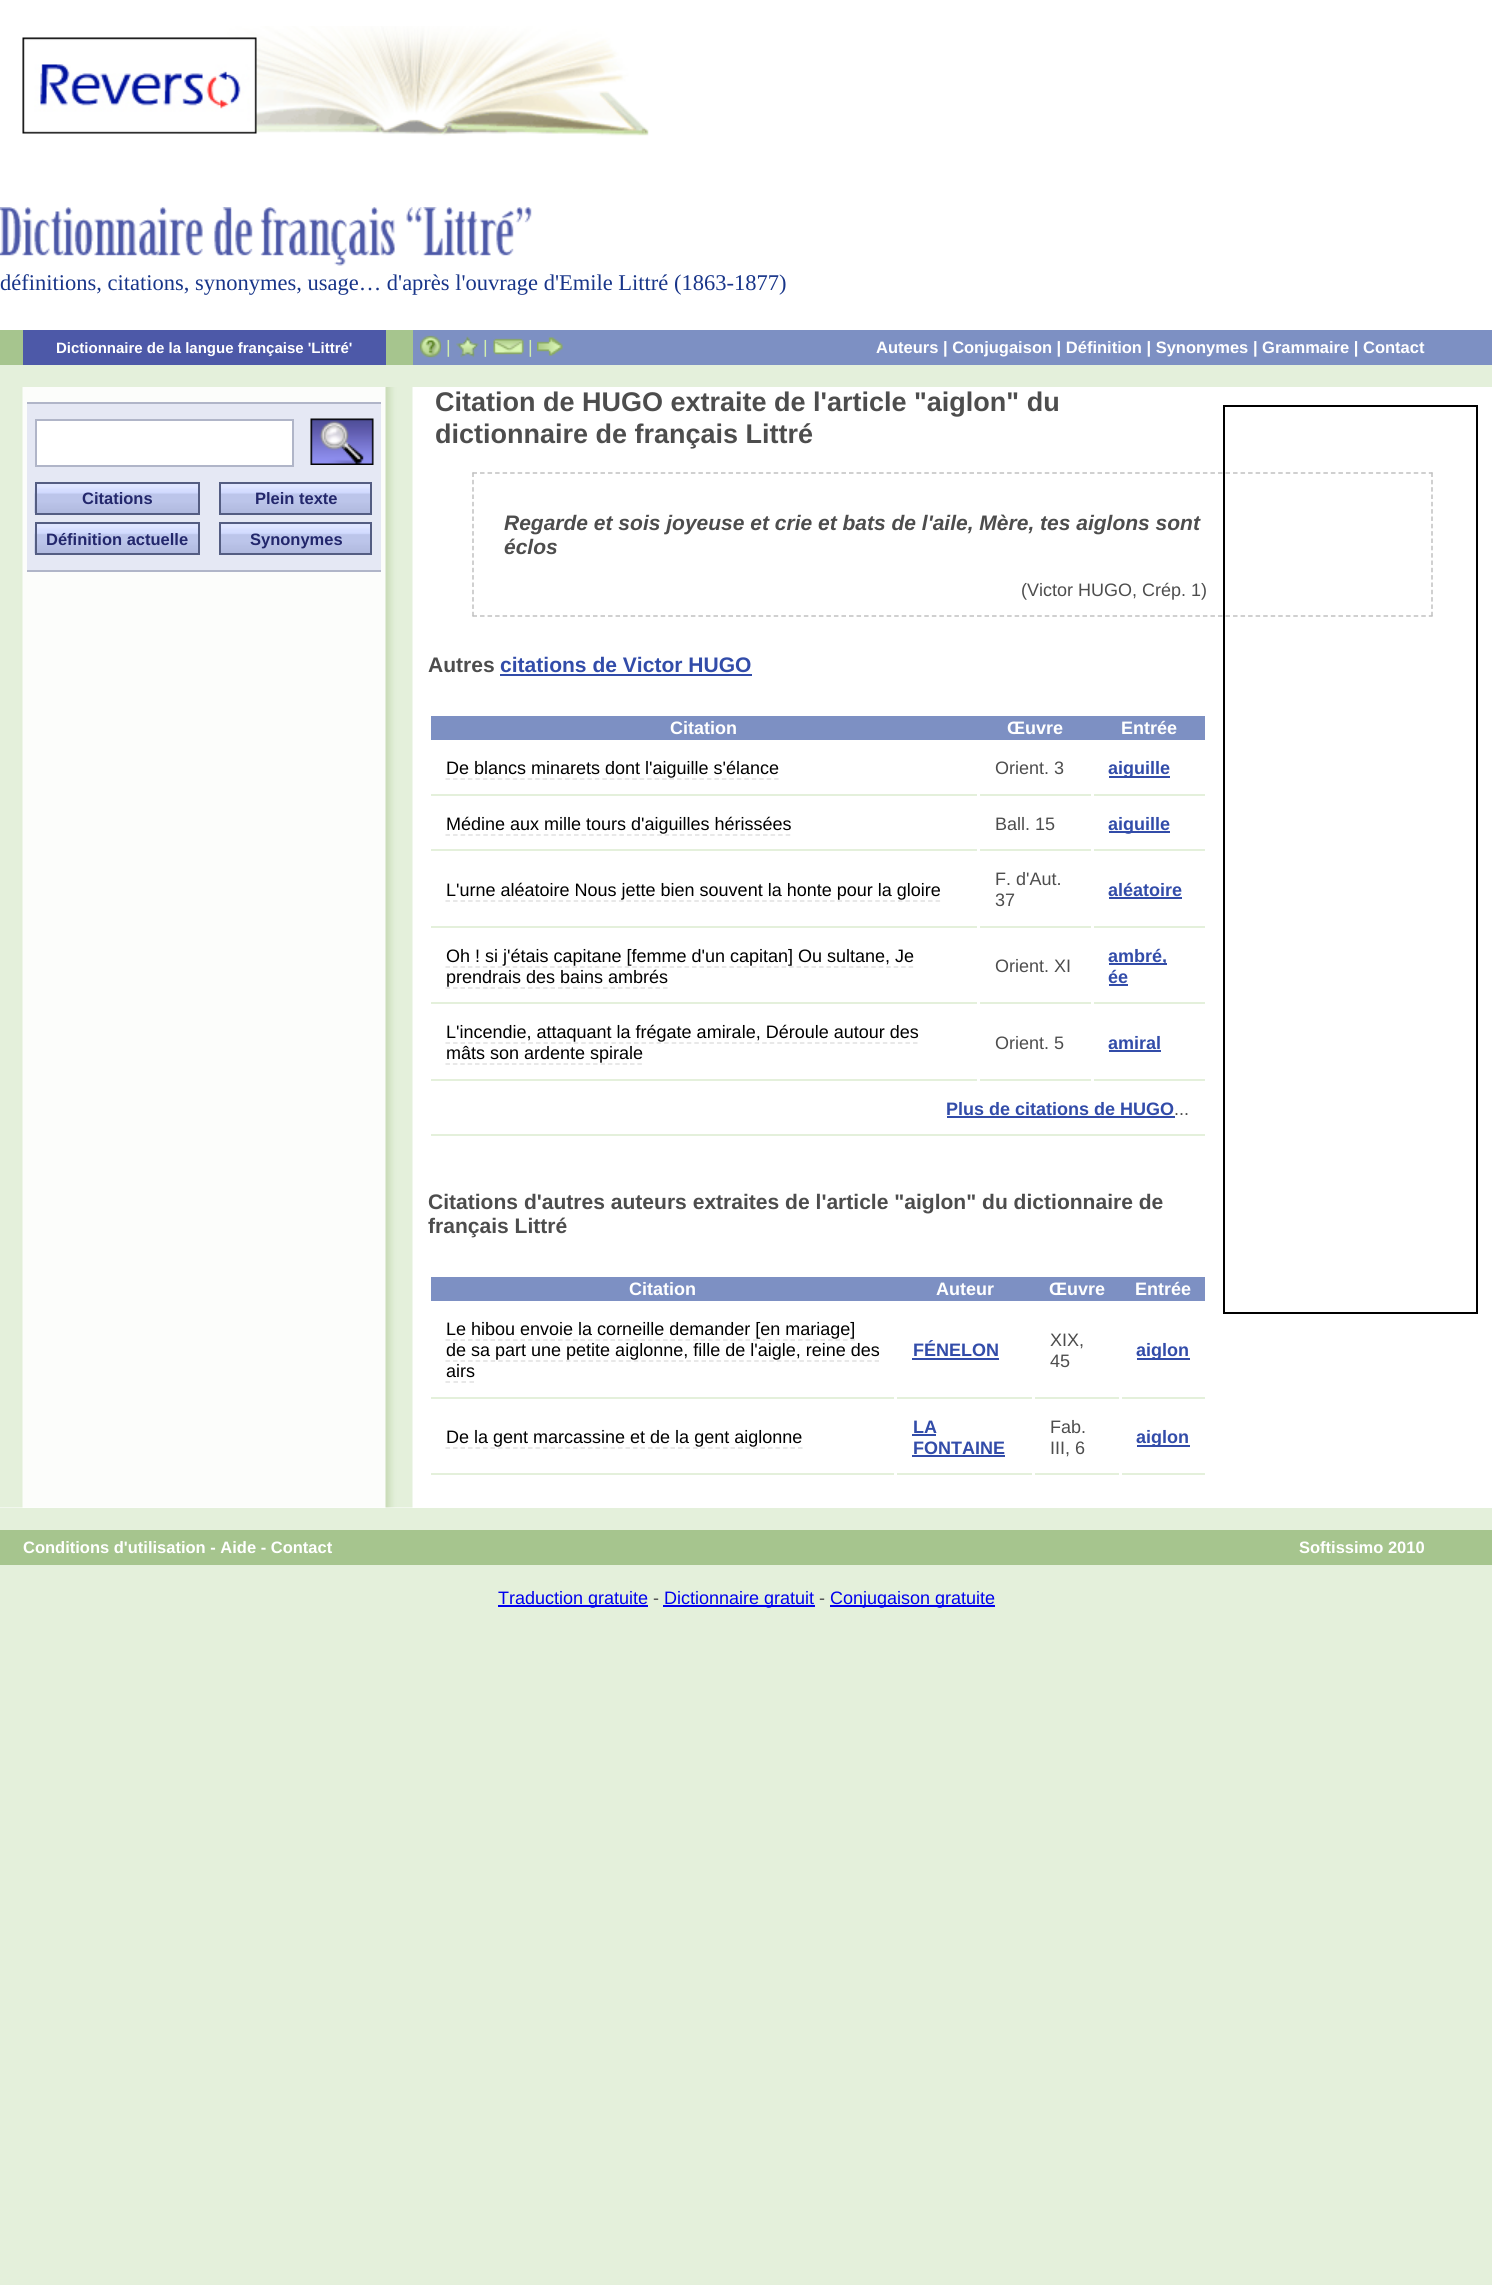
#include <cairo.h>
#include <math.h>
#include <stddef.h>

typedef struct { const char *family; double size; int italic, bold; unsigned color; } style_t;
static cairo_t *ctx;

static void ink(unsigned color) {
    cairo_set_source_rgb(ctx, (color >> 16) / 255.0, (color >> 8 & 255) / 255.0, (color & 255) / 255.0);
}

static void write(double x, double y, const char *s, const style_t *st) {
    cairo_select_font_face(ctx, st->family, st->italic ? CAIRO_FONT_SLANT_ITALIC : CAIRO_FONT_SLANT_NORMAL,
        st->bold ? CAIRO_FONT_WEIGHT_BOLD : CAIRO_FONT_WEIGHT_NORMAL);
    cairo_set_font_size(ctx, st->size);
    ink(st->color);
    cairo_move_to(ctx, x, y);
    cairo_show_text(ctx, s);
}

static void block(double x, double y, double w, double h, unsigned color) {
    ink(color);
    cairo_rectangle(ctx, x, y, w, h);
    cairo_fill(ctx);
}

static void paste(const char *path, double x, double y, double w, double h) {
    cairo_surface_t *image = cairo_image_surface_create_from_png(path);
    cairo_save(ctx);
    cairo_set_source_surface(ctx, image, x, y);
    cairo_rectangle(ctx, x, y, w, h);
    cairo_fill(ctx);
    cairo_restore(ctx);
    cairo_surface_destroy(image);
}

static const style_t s1 = {"Liberation Serif", 22.5, 0, 0, 0x183589};
static const style_t s2 = {"Liberation Sans", 15, 0, 1, 0xffffff};
static const style_t s3 = {"Liberation Sans", 18, 0, 0, 0xd2efad};
static const style_t s4 = {"Liberation Sans", 16.5, 0, 1, 0xffffff};
static const style_t s5 = {"Liberation Sans", 16.5, 0, 1, 0x23276c};
static const style_t s6 = {"Liberation Sans", 27, 0, 1, 0x4d4d4d};
static const style_t s7 = {"Liberation Sans", 21, 1, 1, 0x4d4d4d};
static const style_t s8 = {"Liberation Sans", 18, 0, 0, 0x4d4d4d};
static const style_t s9 = {"Liberation Sans", 21.05, 0, 1, 0x4d4d4d};
static const style_t s10 = {"Liberation Sans", 21.05, 0, 1, 0x324ca9};
static const style_t s11 = {"Liberation Sans", 18, 0, 1, 0xffffff};
static const style_t s12 = {"Liberation Sans", 18, 0, 0, 0x000000};
static const style_t s13 = {"Liberation Sans", 18, 0, 1, 0x324ca9};
static const style_t s14 = {"Liberation Sans", 18, 0, 0, 0x0000ee};

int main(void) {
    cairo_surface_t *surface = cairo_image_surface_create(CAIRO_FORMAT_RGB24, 1492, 2285);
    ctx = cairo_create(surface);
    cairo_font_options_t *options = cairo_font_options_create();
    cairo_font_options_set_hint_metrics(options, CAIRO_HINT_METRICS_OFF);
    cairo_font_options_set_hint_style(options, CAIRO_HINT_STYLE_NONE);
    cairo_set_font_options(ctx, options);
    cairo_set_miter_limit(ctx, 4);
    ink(0xe4f0db);
    cairo_paint(ctx);
    block(0, 0, 1492, 330, 0xffffff);
    paste("pic1.png", 175, 26, 474, 110);
    paste("pic2.png", 22, 37, 235, 97);
    paste("pic3.png", 0, 207, 532, 59);
    write(0, 290, "définitions, citations, synonymes, usage… d'après l'ouvrage d'Emile Littré (1863-1877)", &s1);
    block(0, 330, 413, 35, 0xa6c58e);
    block(23, 330, 363, 35, 0x4d59a8);
    write(56, 353, "Dictionnaire de la langue française 'Littré'", &s2);
    block(413, 330, 1079, 35, 0x7d90c3);
    paste("pic4.png", 420, 335, 21, 23);
    write(446, 353, "|", &s3);
    paste("pic5.png", 456, 336, 23, 22);
    write(483, 353, "|", &s3);
    paste("pic6.png", 493, 338, 31, 17);
    write(528, 353, "|", &s3);
    paste("pic7.png", 537, 337, 26, 19);
    write(876, 353, "Auteurs | Conjugaison | Définition | Synonymes | Grammaire | Contact", &s4);
    block(0, 387, 1492, 1121, 0xffffff);
    paste("pic8.png", 0, 387, 413, 1121);
    block(27, 404, 354, 166, 0xe5e8f4);
    block(27, 402, 354, 2, 0xb0b5c8);
    block(27, 570, 354, 2, 0xb0b5c8);
    ink(0xffffff);
    cairo_rectangle(ctx, 36, 420, 257, 46);
    cairo_fill_preserve(ctx);
    ink(0xb0b5c8);
    cairo_stroke(ctx);
    paste("pic9.png", 310, 418, 64, 47);
    paste("pic10.png", 34, 483, 164, 30);
    cairo_rectangle(ctx, 36, 483, 163, 31);
    ink(0x545d82);
    cairo_stroke(ctx);
    write(82, 504, "Citations", &s5);
    paste("pic11.png", 221, 484, 149, 29);
    cairo_rectangle(ctx, 220, 483, 151, 31);
    ink(0x545d82);
    cairo_stroke(ctx);
    write(255, 504, "Plein texte", &s5);
    paste("pic12.png", 34, 523, 164, 31);
    cairo_rectangle(ctx, 36, 523, 163, 31);
    ink(0x545d82);
    cairo_stroke(ctx);
    write(46, 545, "Définition actuelle", &s5);
    paste("pic13.png", 221, 524, 149, 29);
    cairo_rectangle(ctx, 220, 523, 151, 31);
    ink(0x545d82);
    cairo_stroke(ctx);
    write(250, 545, "Synonymes", &s5);
    write(435, 411, "Citation de HUGO extraite de l'article \"aiglon\" du", &s6);
    write(435, 443, "dictionnaire de français Littré", &s6);
    cairo_new_path(ctx);
    cairo_move_to(ctx, 472.5, 473);
    cairo_line_to(ctx, 1432.5, 473);
    ink(0xc0c0c0);
    cairo_set_line_width(ctx, 1.5);
    cairo_set_dash(ctx, (double[]){4.5, 3.03}, 2, 0);
    cairo_stroke(ctx);
    cairo_new_path(ctx);
    cairo_move_to(ctx, 1432, 472.5);
    cairo_line_to(ctx, 1432, 616.5);
    cairo_set_dash(ctx, (double[]){4.5, 2.83}, 2, 0);
    cairo_stroke(ctx);
    cairo_new_path(ctx);
    cairo_move_to(ctx, 472.5, 616);
    cairo_line_to(ctx, 1432.5, 616);
    cairo_set_dash(ctx, (double[]){4.5, 3.03}, 2, 0);
    cairo_stroke(ctx);
    cairo_new_path(ctx);
    cairo_move_to(ctx, 473, 472.5);
    cairo_line_to(ctx, 473, 616.5);
    cairo_set_dash(ctx, (double[]){4.5, 2.83}, 2, 0);
    cairo_stroke(ctx);
    write(504, 530, "Regarde et sois joyeuse et crie et bats de l'aile, Mère, tes aiglons sont", &s7);
    write(504, 554, "éclos", &s7);
    write(1021, 596, "(Victor HUGO, Crép. 1)", &s8);
    write(428, 672, "Autres", &s9);
    write(500, 672, "citations de Victor HUGO", &s10);
    block(500, 674, 252, 2, 0x324ca9);
    block(431, 716, 774, 24, 0x7d90c3);
    write(670, 734, "Citation", &s11);
    write(1007, 734, "Œuvre", &s11);
    write(1121, 734, "Entrée", &s11);
    block(431, 794, 546, 2, 0xe4f0db);
    write(446, 774, "De blancs minarets dont l'aiguille s'élance", &s12);
    cairo_new_path(ctx);
    cairo_move_to(ctx, 445.5, 779);
    cairo_line_to(ctx, 778.5, 779);
    ink(0xe0e0e0);
    cairo_set_dash(ctx, (double[]){4.5, 2.97}, 2, 0);
    cairo_stroke(ctx);
    block(980, 794, 111, 2, 0xe4f0db);
    write(995, 774, "Orient. 3", &s8);
    block(1094, 794, 111, 2, 0xe4f0db);
    block(1109, 776, 61, 2, 0x324ca9);
    write(1108, 774, "aiguille", &s13);
    block(431, 849, 546, 2, 0xe4f0db);
    write(446, 830, "Médine aux mille tours d'aiguilles hérissées", &s12);
    cairo_new_path(ctx);
    cairo_move_to(ctx, 445.5, 835);
    cairo_line_to(ctx, 790.5, 835);
    ink(0xe0e0e0);
    cairo_set_dash(ctx, (double[]){4.5, 3.06}, 2, 0);
    cairo_stroke(ctx);
    block(980, 849, 111, 2, 0xe4f0db);
    write(995, 830, "Ball. 15", &s8);
    block(1094, 849, 111, 2, 0xe4f0db);
    block(1109, 831, 61, 2, 0x324ca9);
    write(1108, 830, "aiguille", &s13);
    block(431, 926, 546, 2, 0xe4f0db);
    write(446, 896, "L'urne aléatoire Nous jette bien souvent la honte pour la gloire", &s12);
    cairo_new_path(ctx);
    cairo_move_to(ctx, 445.5, 901);
    cairo_line_to(ctx, 940.5, 901);
    ink(0xe0e0e0);
    cairo_set_dash(ctx, (double[]){4.5, 3.04}, 2, 0);
    cairo_stroke(ctx);
    block(980, 926, 111, 2, 0xe4f0db);
    write(995, 885, "F. d'Aut.", &s8);
    write(995, 906, "37", &s8);
    block(1094, 926, 111, 2, 0xe4f0db);
    write(1108, 896, "aléatoire", &s13);
    block(1109, 897, 73, 2, 0x324ca9);
    block(431, 1002, 546, 2, 0xe4f0db);
    write(446, 962, "Oh ! si j'étais capitane [femme d'un capitan] Ou sultane, Je", &s12);
    cairo_new_path(ctx);
    cairo_move_to(ctx, 445.5, 967);
    cairo_line_to(ctx, 913.5, 967);
    ink(0xe0e0e0);
    cairo_set_dash(ctx, (double[]){4.5, 2.97}, 2, 0);
    cairo_stroke(ctx);
    write(446, 983, "prendrais des bains ambrés", &s12);
    cairo_new_path(ctx);
    cairo_move_to(ctx, 445.5, 988);
    cairo_line_to(ctx, 667.5, 988);
    ink(0xe0e0e0);
    cairo_set_dash(ctx, (double[]){4.5, 3}, 2, 0);
    cairo_stroke(ctx);
    block(980, 1002, 111, 2, 0xe4f0db);
    write(995, 972, "Orient. XI", &s8);
    block(1094, 1002, 111, 2, 0xe4f0db);
    block(1109, 963, 58, 2, 0x324ca9);
    write(1108, 962, "ambré,", &s13);
    write(1108, 983, "ée", &s13);
    block(1109, 984, 19, 2, 0x324ca9);
    block(431, 1079, 546, 2, 0xe4f0db);
    write(446, 1038, "L'incendie, attaquant la frégate amirale, Déroule autour des", &s12);
    cairo_new_path(ctx);
    cairo_move_to(ctx, 445.5, 1043);
    cairo_line_to(ctx, 918, 1043);
    ink(0xe0e0e0);
    cairo_set_dash(ctx, (double[]){4.5, 3.04}, 2, 0);
    cairo_stroke(ctx);
    write(446, 1059, "mâts son ardente spirale", &s12);
    cairo_new_path(ctx);
    cairo_move_to(ctx, 445.5, 1064);
    cairo_line_to(ctx, 642, 1064);
    ink(0xe0e0e0);
    cairo_set_dash(ctx, (double[]){4.5, 2.88}, 2, 0);
    cairo_stroke(ctx);
    block(980, 1079, 111, 2, 0xe4f0db);
    write(995, 1049, "Orient. 5", &s8);
    block(1094, 1079, 111, 2, 0xe4f0db);
    write(1108, 1049, "amiral", &s13);
    block(1109, 1050, 52, 2, 0x324ca9);
    block(431, 1134, 774, 2, 0xe4f0db);
    write(946, 1115, "Plus de citations de HUGO", &s13);
    block(947, 1116, 228, 2, 0x324ca9);
    write(1174, 1115, "...", &s8);
    write(428, 1209, "Citations d'autres auteurs extraites de l'article \"aiglon\" du dictionnaire de", &s9);
    write(428, 1233, "français Littré", &s9);
    block(431, 1277, 774, 24, 0x7d90c3);
    write(629, 1295, "Citation", &s11);
    write(936, 1295, "Auteur", &s11);
    write(1049, 1295, "Œuvre", &s11);
    write(1135, 1295, "Entrée", &s11);
    block(431, 1397, 463, 2, 0xe4f0db);
    write(446, 1335, "Le hibou envoie la corneille demander [en mariage]", &s12);
    cairo_new_path(ctx);
    cairo_move_to(ctx, 445.5, 1340);
    cairo_line_to(ctx, 855, 1340);
    ink(0xe0e0e0);
    cairo_set_dash(ctx, (double[]){4.5, 3}, 2, 0);
    cairo_stroke(ctx);
    write(446, 1356, "de sa part une petite aiglonne, fille de l'aigle, reine des", &s12);
    write(446, 1377, "airs", &s12);
    cairo_new_path(ctx);
    cairo_move_to(ctx, 445.5, 1361);
    cairo_line_to(ctx, 879, 1361);
    ink(0xe0e0e0);
    cairo_set_dash(ctx, (double[]){4.5, 3.03}, 2, 0);
    cairo_stroke(ctx);
    cairo_new_path(ctx);
    cairo_move_to(ctx, 445.5, 1382);
    cairo_line_to(ctx, 474, 1382);
    cairo_set_dash(ctx, (double[]){4.5, 3.5}, 2, 0);
    cairo_stroke(ctx);
    block(897, 1397, 135, 2, 0xe4f0db);
    write(913, 1356, "FÉNELON", &s13);
    block(912, 1358, 87, 2, 0x324ca9);
    block(1035, 1397, 84, 2, 0xe4f0db);
    write(1050, 1346, "XIX,", &s8);
    write(1050, 1367, "45", &s8);
    block(1122, 1397, 83, 2, 0xe4f0db);
    block(1137, 1358, 53, 2, 0x324ca9);
    write(1136, 1356, "aiglon", &s13);
    block(431, 1473, 463, 2, 0xe4f0db);
    write(446, 1443, "De la gent marcassine et de la gent aiglonne", &s12);
    cairo_new_path(ctx);
    cairo_move_to(ctx, 445.5, 1448);
    cairo_line_to(ctx, 802.5, 1448);
    ink(0xe0e0e0);
    cairo_set_dash(ctx, (double[]){4.5, 3}, 2, 0);
    cairo_stroke(ctx);
    block(897, 1473, 135, 2, 0xe4f0db);
    write(913, 1433, "LA", &s13);
    block(912, 1434, 24, 2, 0x324ca9);
    write(913, 1454, "FONTAINE", &s13);
    block(912, 1455, 93, 2, 0x324ca9);
    block(1035, 1473, 84, 2, 0xe4f0db);
    write(1050, 1433, "Fab.", &s8);
    write(1050, 1454, "III, 6", &s8);
    block(1122, 1473, 83, 2, 0xe4f0db);
    block(1137, 1445, 53, 2, 0x324ca9);
    write(1136, 1443, "aiglon", &s13);
    cairo_rectangle(ctx, 1224, 406, 253, 907);
    ink(0x000000);
    cairo_set_line_width(ctx, 2);
    cairo_set_dash(ctx, NULL, 0, 0);
    cairo_stroke(ctx);
    block(0, 1530, 1492, 35, 0xa6c58e);
    write(23, 1553, "Conditions d'utilisation - Aide - Contact", &s4);
    write(1299, 1553, "Softissimo 2010", &s4);
    block(498, 1605, 150, 2, 0x0000ee);
    write(498, 1604, "Traduction gratuite", &s14);
    write(653, 1604, "-", &s8);
    block(663, 1605, 152, 2, 0x0000ee);
    write(664, 1604, "Dictionnaire gratuit", &s14);
    write(819, 1604, "-", &s8);
    block(830, 1605, 165, 2, 0x0000ee);
    write(830, 1604, "Conjugaison gratuite", &s14);
    cairo_surface_write_to_png(surface, "screenshot.png");
    cairo_font_options_destroy(options);
    cairo_destroy(ctx);
    cairo_surface_destroy(surface);
    return 0;
}
